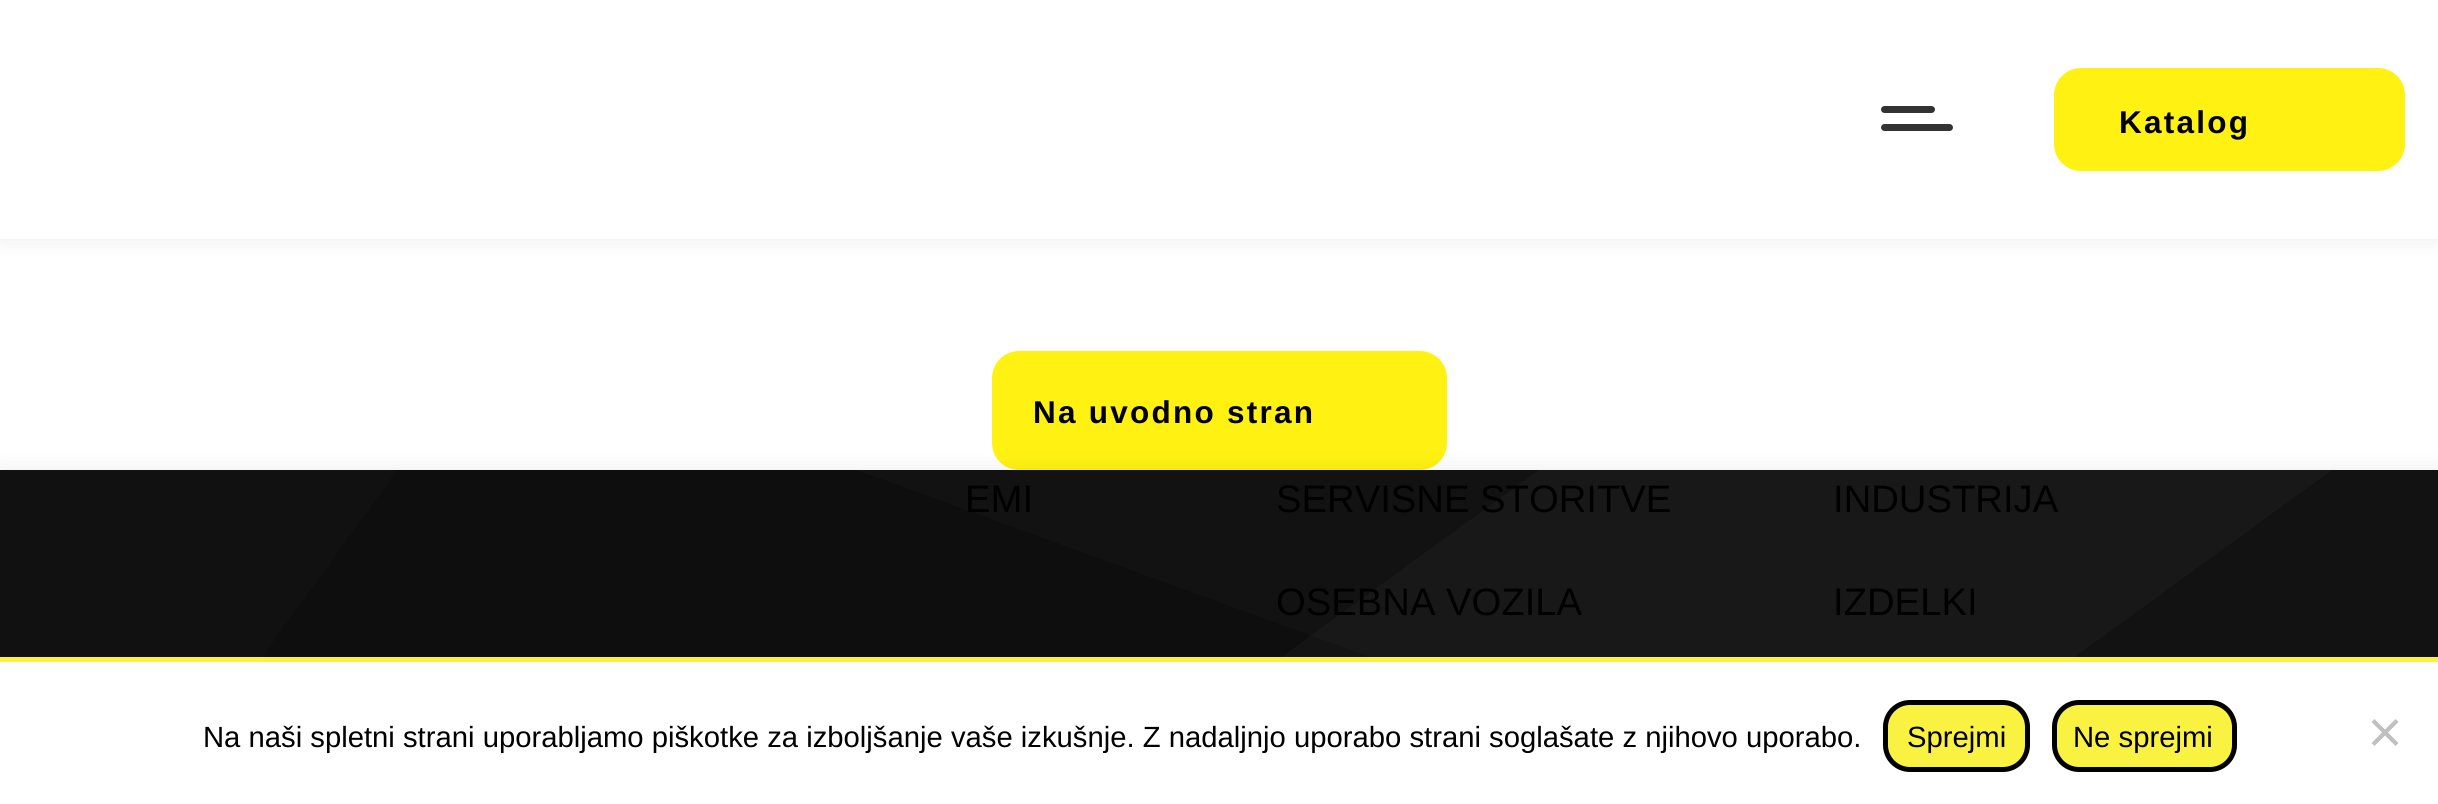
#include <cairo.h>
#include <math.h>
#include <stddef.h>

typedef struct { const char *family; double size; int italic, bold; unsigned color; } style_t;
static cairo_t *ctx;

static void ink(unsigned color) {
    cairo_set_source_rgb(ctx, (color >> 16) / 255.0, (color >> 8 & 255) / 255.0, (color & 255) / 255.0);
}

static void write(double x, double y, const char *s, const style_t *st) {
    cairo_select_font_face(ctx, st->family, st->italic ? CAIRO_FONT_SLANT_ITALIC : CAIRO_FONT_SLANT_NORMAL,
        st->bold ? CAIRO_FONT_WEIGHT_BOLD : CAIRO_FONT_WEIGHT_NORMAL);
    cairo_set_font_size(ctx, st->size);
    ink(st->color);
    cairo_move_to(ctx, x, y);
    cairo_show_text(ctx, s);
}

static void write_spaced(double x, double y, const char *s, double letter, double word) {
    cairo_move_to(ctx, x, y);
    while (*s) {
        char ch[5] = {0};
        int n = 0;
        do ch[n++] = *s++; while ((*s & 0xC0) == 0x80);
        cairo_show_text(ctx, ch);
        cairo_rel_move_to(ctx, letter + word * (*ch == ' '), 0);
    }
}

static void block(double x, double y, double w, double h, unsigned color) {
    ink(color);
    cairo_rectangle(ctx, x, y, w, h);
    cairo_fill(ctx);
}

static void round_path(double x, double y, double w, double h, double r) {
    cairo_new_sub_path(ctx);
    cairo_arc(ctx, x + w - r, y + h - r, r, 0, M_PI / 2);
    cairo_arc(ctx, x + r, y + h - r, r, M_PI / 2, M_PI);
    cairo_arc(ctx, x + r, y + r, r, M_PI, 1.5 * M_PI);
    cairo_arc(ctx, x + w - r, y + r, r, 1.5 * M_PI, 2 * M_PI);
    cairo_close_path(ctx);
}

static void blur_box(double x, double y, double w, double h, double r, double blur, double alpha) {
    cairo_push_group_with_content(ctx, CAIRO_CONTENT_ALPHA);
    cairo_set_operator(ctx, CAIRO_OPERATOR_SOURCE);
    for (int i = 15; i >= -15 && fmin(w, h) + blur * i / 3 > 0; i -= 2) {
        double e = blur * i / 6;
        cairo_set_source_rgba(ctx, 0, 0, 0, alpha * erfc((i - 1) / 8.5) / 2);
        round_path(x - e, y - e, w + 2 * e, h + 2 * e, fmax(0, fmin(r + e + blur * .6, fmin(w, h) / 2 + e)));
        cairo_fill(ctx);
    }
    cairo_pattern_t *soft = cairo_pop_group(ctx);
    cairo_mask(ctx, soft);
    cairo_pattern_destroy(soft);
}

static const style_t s1 = {"Liberation Sans", 38.25, 0, 0, 0x000000};
static const style_t s2 = {"Liberation Sans", 29.25, 0, 0, 0x000000};

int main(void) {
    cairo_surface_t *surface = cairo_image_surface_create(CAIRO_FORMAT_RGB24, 2438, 804);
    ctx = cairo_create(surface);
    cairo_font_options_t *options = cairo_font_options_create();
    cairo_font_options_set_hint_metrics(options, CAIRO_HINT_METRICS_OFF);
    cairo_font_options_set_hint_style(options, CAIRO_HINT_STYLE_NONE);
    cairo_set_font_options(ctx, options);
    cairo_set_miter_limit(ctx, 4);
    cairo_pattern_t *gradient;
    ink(0xffffff);
    cairo_paint(ctx);
    ink(0x000000);
    blur_box(0, 0, 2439, 239, 0, 11, 0.08);
    block(0, 0, 2438, 239, 0xffffff);
    ink(0x333333);
    round_path(1881, 106, 54, 7, 3.5);
    cairo_fill(ctx);
    round_path(1881, 124, 72, 7, 3.5);
    cairo_fill(ctx);
    ink(0xfff212);
    round_path(2056.5, 70.5, 346, 98, 24.5);
    cairo_fill_preserve(ctx);
    cairo_set_line_width(ctx, 5);
    cairo_stroke(ctx);
    cairo_select_font_face(ctx, "Liberation Sans", CAIRO_FONT_SLANT_NORMAL, CAIRO_FONT_WEIGHT_BOLD);
    cairo_set_font_size(ctx, 31.5);
    ink(0x000000);
    write_spaced(2119, 133, "Katalog", 2.25, 0);
    ink(0xfff212);
    round_path(994.5, 353.5, 450, 114, 24.5);
    cairo_fill_preserve(ctx);
    cairo_stroke(ctx);
    ink(0x000000);
    write_spaced(1033, 423, "Na uvodno stran", 2.25, 0);
    ink(0x000000);
    blur_box(0, 470, 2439, 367, 0, 11, 0.08);
    gradient = cairo_pattern_create_linear(414, 169, 2025, 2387);
    cairo_pattern_add_color_stop_rgba(gradient, 0, 0.012, 0.012, 0.012, 1);
    cairo_pattern_add_color_stop_rgba(gradient, 0.33, 0.012, 0.012, 0.012, 1);
    cairo_pattern_add_color_stop_rgba(gradient, 0.33, 0.043, 0.043, 0.043, 1);
    cairo_pattern_add_color_stop_rgba(gradient, 0.5, 0.043, 0.043, 0.043, 1);
    cairo_pattern_add_color_stop_rgba(gradient, 0.5, 0.012, 0.012, 0.012, 1);
    cairo_pattern_add_color_stop_rgba(gradient, 0.75, 0.012, 0.012, 0.012, 1);
    cairo_pattern_add_color_stop_rgba(gradient, 0.75, 0.027, 0.027, 0.027, 1);
    cairo_pattern_add_color_stop_rgba(gradient, 1, 0.027, 0.027, 0.027, 1);
    cairo_set_source(ctx, gradient);
    cairo_pattern_destroy(gradient);
    cairo_rectangle(ctx, 0, 470, 2438, 187);
    cairo_fill(ctx);
    gradient = cairo_pattern_create_linear(37, 419, 2402, 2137);
    cairo_pattern_add_color_stop_rgba(gradient, 0, 0.761, 0.761, 0.761, 0.05);
    cairo_pattern_add_color_stop_rgba(gradient, 0.11, 0.761, 0.761, 0.761, 0.05);
    cairo_pattern_add_color_stop_rgba(gradient, 0.11, 0.498, 0.498, 0.498, 0.05);
    cairo_pattern_add_color_stop_rgba(gradient, 0.33, 0.498, 0.498, 0.498, 0.05);
    cairo_pattern_add_color_stop_rgba(gradient, 0.33, 0.459, 0.459, 0.459, 0.05);
    cairo_pattern_add_color_stop_rgba(gradient, 0.99, 0.459, 0.459, 0.459, 0.05);
    cairo_pattern_add_color_stop_rgba(gradient, 0.99, 0.973, 0.973, 0.973, 0.05);
    cairo_pattern_add_color_stop_rgba(gradient, 1, 0.973, 0.973, 0.973, 0.05);
    cairo_set_source(ctx, gradient);
    cairo_pattern_destroy(gradient);
    cairo_rectangle(ctx, 0, 470, 2438, 187);
    cairo_fill(ctx);
    gradient = cairo_pattern_create_linear(1622, 173, 817, 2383);
    cairo_pattern_add_color_stop_rgba(gradient, 0, 0.671, 0.671, 0.671, 0.05);
    cairo_pattern_add_color_stop_rgba(gradient, 0.23, 0.671, 0.671, 0.671, 0.05);
    cairo_pattern_add_color_stop_rgba(gradient, 0.23, 0.353, 0.353, 0.353, 0.05);
    cairo_pattern_add_color_stop_rgba(gradient, 0.48, 0.353, 0.353, 0.353, 0.05);
    cairo_pattern_add_color_stop_rgba(gradient, 0.48, 0.255, 0.255, 0.255, 0.05);
    cairo_pattern_add_color_stop_rgba(gradient, 0.61, 0.255, 0.255, 0.255, 0.05);
    cairo_pattern_add_color_stop_rgba(gradient, 0.61, 0.91, 0.91, 0.91, 0.05);
    cairo_pattern_add_color_stop_rgba(gradient, 1, 0.91, 0.91, 0.91, 0.05);
    cairo_set_source(ctx, gradient);
    cairo_pattern_destroy(gradient);
    cairo_rectangle(ctx, 0, 470, 2438, 187);
    cairo_fill(ctx);
    write(965, 512, "EMI", &s1);
    write(1276, 512, "SERVISNE STORITVE", &s1);
    write(1276, 615, "OSEBNA VOZILA", &s1);
    write(1833, 512, "INDUSTRIJA", &s1);
    write(1833, 615, "IZDELKI", &s1);
    block(0, 662, 2438, 142, 0xffffff);
    block(0, 657, 2438, 5, 0xfaf240);
    write(203, 747, "Na naši spletni strani uporabljamo piškotke za izboljšanje vaše izkušnje. Z nadaljnjo uporabo strani soglašate z njihovo uporabo.", &s2);
    ink(0xfaf240);
    round_path(1885.5, 702.5, 142, 67, 24.5);
    cairo_fill_preserve(ctx);
    ink(0x000000);
    cairo_stroke(ctx);
    write(1907, 747, "Sprejmi", &s2);
    ink(0xfaf240);
    round_path(2054.5, 702.5, 180, 67, 24.5);
    cairo_fill_preserve(ctx);
    ink(0x000000);
    cairo_stroke(ctx);
    write(2073, 747, "Ne sprejmi", &s2);
    ink(0xc0c0c0);
    cairo_new_path(ctx);
    cairo_move_to(ctx, 2395.5, 719);
    cairo_line_to(ctx, 2398.5, 722);
    cairo_line_to(ctx, 2374.5, 746);
    cairo_line_to(ctx, 2371.5, 743);
    cairo_close_path(ctx);
    cairo_fill(ctx);
    cairo_new_path(ctx);
    cairo_move_to(ctx, 2371.5, 722);
    cairo_line_to(ctx, 2374.5, 719);
    cairo_line_to(ctx, 2398.5, 743);
    cairo_line_to(ctx, 2395.5, 746);
    cairo_close_path(ctx);
    cairo_fill(ctx);
    cairo_surface_write_to_png(surface, "screenshot.png");
    cairo_font_options_destroy(options);
    cairo_destroy(ctx);
    cairo_surface_destroy(surface);
    return 0;
}
